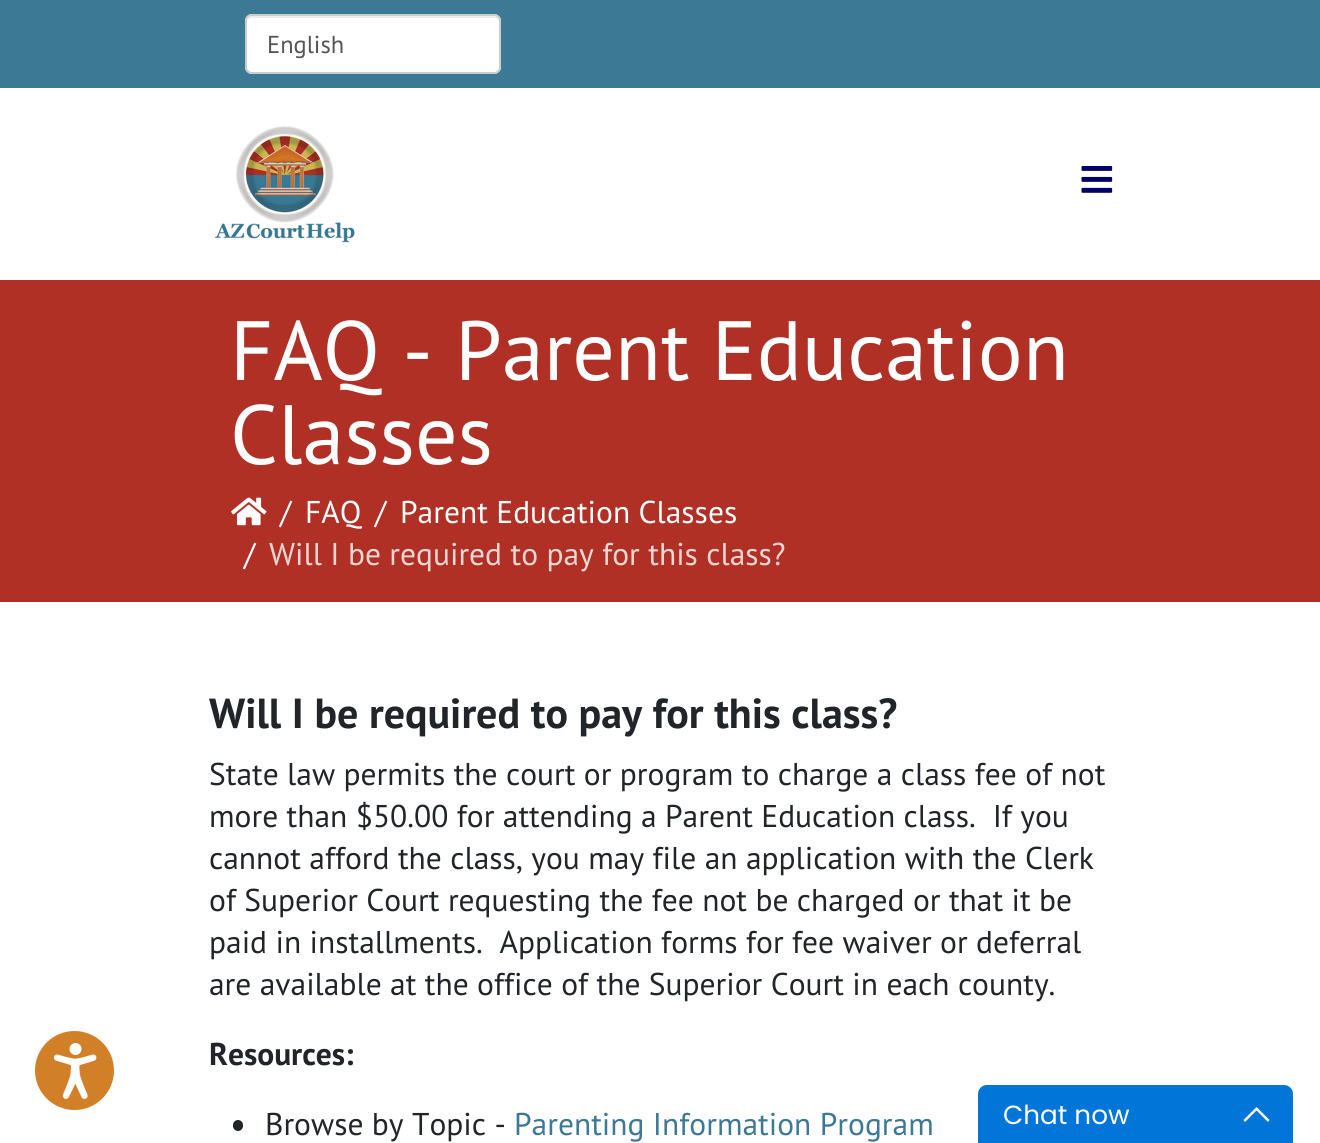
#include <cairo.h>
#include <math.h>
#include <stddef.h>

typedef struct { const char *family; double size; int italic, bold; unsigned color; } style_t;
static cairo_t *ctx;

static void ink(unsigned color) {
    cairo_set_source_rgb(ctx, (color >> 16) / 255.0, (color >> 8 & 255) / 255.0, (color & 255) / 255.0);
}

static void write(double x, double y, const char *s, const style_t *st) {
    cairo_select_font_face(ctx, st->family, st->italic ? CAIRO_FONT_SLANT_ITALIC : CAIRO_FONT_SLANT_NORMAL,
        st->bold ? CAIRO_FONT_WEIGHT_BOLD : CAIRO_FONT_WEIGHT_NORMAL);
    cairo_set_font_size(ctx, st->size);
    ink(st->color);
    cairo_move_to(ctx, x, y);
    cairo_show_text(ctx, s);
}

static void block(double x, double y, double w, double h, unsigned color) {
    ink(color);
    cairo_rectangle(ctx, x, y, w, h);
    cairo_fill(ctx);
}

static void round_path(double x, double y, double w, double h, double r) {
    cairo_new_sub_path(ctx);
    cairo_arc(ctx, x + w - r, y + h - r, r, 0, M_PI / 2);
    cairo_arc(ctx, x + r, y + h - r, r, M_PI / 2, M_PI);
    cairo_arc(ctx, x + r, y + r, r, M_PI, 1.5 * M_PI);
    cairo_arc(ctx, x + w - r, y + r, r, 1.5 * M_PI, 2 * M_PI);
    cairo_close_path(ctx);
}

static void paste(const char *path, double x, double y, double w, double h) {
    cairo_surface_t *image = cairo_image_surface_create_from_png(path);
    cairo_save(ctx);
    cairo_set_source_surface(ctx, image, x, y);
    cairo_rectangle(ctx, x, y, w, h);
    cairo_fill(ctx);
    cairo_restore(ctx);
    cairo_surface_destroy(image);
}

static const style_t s1 = {"PT Sans", 24.5, 0, 0, 0x555555};
static const style_t s2 = {"PT Sans", 84, 0, 0, 0xffffff};
static const style_t s3 = {"PT Sans", 31.5, 0, 0, 0xffffff};
static const style_t s4 = {"PT Sans", 31.5, 0, 0, 0xefd6d3};
static const style_t s5 = {"PT Sans", 42, 0, 1, 0x212529};
static const style_t s6 = {"PT Sans", 31.5, 0, 0, 0x212529};
static const style_t s7 = {"PT Sans", 31.5, 0, 1, 0x212529};
static const style_t s8 = {"PT Sans", 31.5, 0, 0, 0x3d7995};
static const style_t s9 = {"Poppins", 26.25, 0, 0, 0xffffff};

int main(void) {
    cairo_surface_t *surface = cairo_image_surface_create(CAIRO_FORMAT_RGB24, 1320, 1143);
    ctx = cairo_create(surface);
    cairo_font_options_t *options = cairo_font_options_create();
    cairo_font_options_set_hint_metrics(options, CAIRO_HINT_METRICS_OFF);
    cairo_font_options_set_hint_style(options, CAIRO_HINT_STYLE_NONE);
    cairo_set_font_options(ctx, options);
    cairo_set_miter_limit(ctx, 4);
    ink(0xffffff);
    cairo_paint(ctx);
    ink(0xd28028);
    cairo_arc(ctx, 74.5, 1070.5, 39.5, 0, 2 * M_PI);
    cairo_fill(ctx);
    paste("pic1.png", 53, 1043, 44, 56);
    block(0, 0, 1320, 88, 0x3b7994);
    ink(0xffffff);
    round_path(245, 14, 256, 60, 7);
    cairo_fill(ctx);
    ink(0xececec);
    cairo_new_path(ctx);
    cairo_move_to(ctx, 252, 18);
    cairo_line_to(ctx, 494, 18);
    cairo_curve_to(ctx, 496, 18, 499, 20, 499, 23);
    cairo_curve_to(ctx, 499, 20, 498, 16, 494, 16);
    cairo_line_to(ctx, 252, 16);
    cairo_curve_to(ctx, 248, 16, 247, 20, 247, 23);
    cairo_curve_to(ctx, 247, 20, 249, 18, 252, 18);
    cairo_close_path(ctx);
    cairo_fill(ctx);
    round_path(246, 15, 254, 58, 6);
    ink(0xcccccc);
    cairo_stroke(ctx);
    write(267, 53, "English", &s1);
    paste("pic2.png", 214, 126, 141, 117);
    paste("pic3.png", 1081, 166, 32, 27);
    block(0, 280, 1320, 322, 0xb03025);
    write(230, 380, "FAQ - Parent Education", &s2);
    write(230, 464, "Classes", &s2);
    paste("pic4.png", 231, 497, 36, 29);
    write(280, 523, "/", &s3);
    write(305, 523, "FAQ", &s3);
    write(375, 523, "/", &s3);
    write(400, 523, "Parent Education Classes", &s3);
    write(244, 565, "/", &s3);
    write(269, 565, "Will I be required to pay for this class?", &s4);
    write(209, 728, "Will I be required to pay for this class?", &s5);
    write(209, 785, "State law permits the court or program to charge a class fee of not", &s6);
    write(209, 827, "more than $50.00 for attending a Parent Education class.  If you", &s6);
    write(209, 869, "cannot afford the class, you may file an application with the Clerk", &s6);
    write(209, 911, "of Superior Court requesting the fee not be charged or that it be", &s6);
    write(209, 953, "paid in installments.  Application forms for fee waiver or deferral", &s6);
    write(209, 995, "are available at the office of the Superior Court in each county.", &s6);
    write(209, 1065, "Resources:", &s7);
    round_path(233, 1120, 10, 11, 5);
    cairo_fill(ctx);
    write(265, 1135, "Browse by Topic -", &s6);
    write(514, 1135, "Parenting Information Program", &s8);
    ink(0x0275d8);
    cairo_new_path(ctx);
    cairo_move_to(ctx, 987, 1085);
    cairo_line_to(ctx, 1284, 1085);
    cairo_curve_to(ctx, 1289, 1085, 1293, 1089, 1293, 1094);
    cairo_line_to(ctx, 1293, 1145);
    cairo_line_to(ctx, 978, 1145);
    cairo_line_to(ctx, 978, 1094);
    cairo_curve_to(ctx, 978, 1089, 982, 1085, 987, 1085);
    cairo_close_path(ctx);
    cairo_fill(ctx);
    write(1003, 1124, "Chat now", &s9);
    cairo_new_path(ctx);
    cairo_move_to(ctx, 1256.5, 1107);
    cairo_line_to(ctx, 1269.5, 1120);
    cairo_line_to(ctx, 1268, 1122);
    cairo_line_to(ctx, 1256.5, 1110.5);
    cairo_line_to(ctx, 1245, 1122);
    cairo_line_to(ctx, 1243.5, 1120);
    cairo_close_path(ctx);
    cairo_fill(ctx);
    cairo_surface_write_to_png(surface, "screenshot.png");
    cairo_font_options_destroy(options);
    cairo_destroy(ctx);
    cairo_surface_destroy(surface);
    return 0;
}
